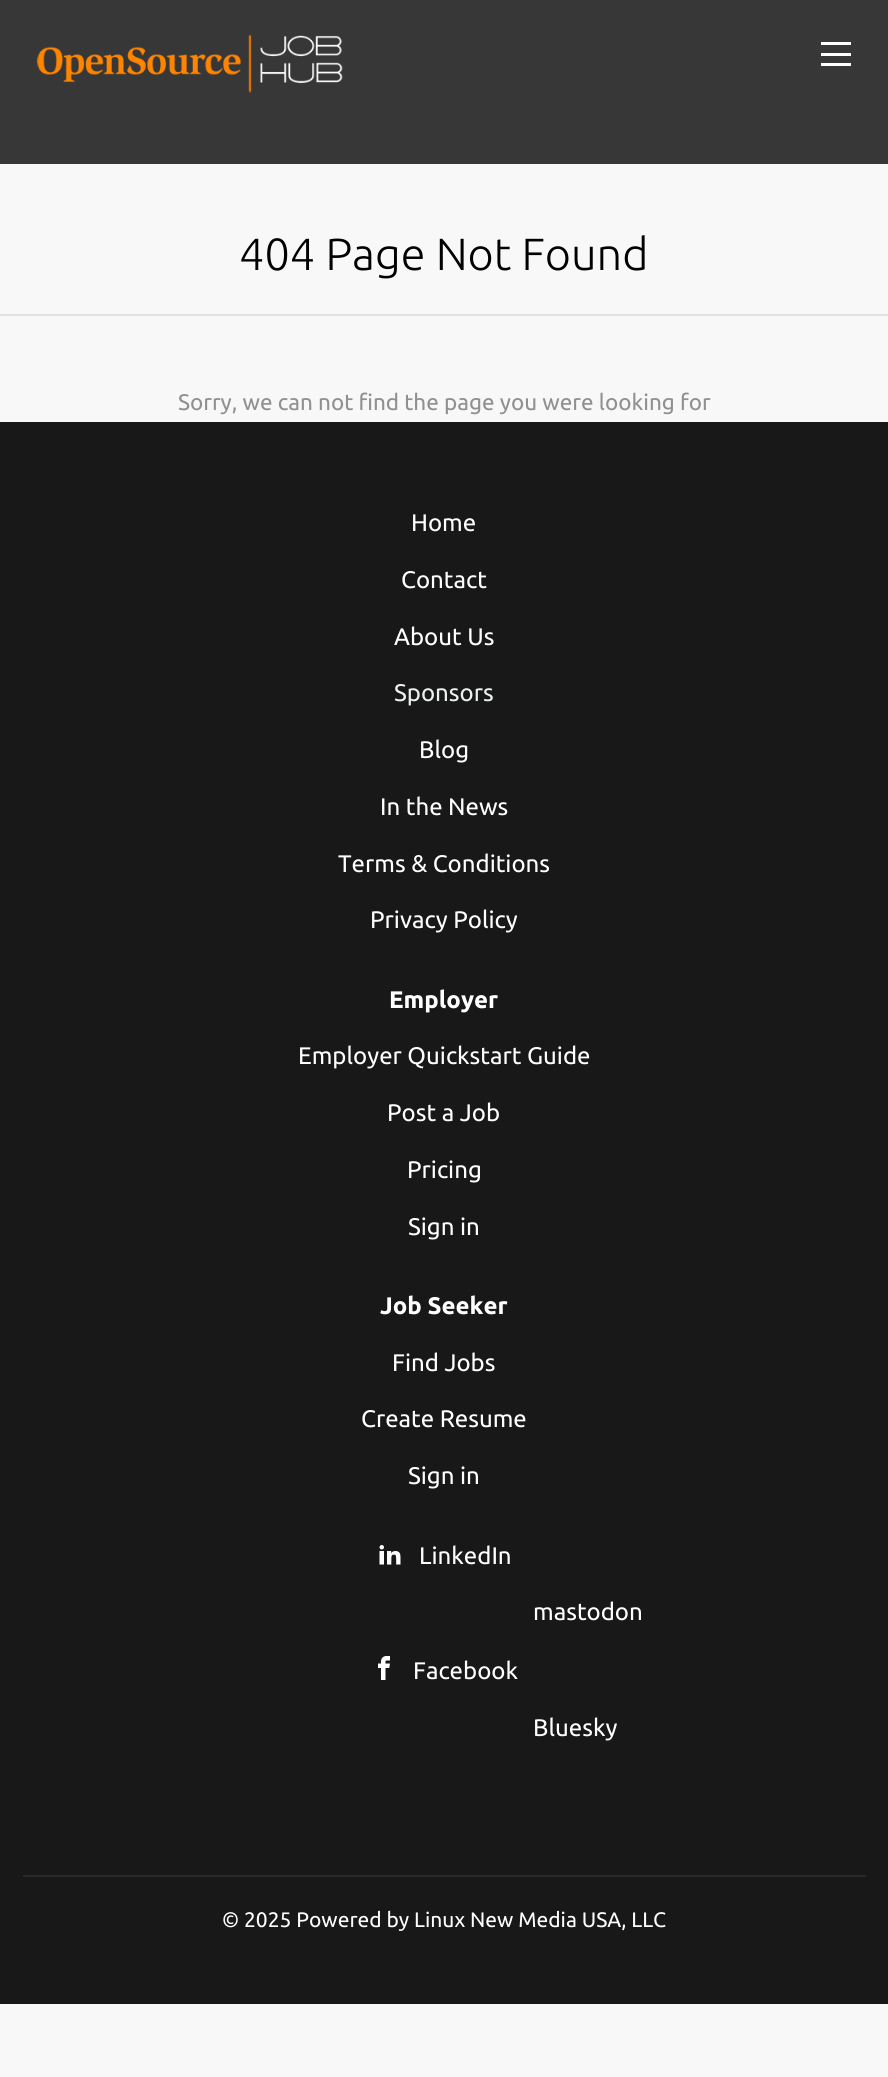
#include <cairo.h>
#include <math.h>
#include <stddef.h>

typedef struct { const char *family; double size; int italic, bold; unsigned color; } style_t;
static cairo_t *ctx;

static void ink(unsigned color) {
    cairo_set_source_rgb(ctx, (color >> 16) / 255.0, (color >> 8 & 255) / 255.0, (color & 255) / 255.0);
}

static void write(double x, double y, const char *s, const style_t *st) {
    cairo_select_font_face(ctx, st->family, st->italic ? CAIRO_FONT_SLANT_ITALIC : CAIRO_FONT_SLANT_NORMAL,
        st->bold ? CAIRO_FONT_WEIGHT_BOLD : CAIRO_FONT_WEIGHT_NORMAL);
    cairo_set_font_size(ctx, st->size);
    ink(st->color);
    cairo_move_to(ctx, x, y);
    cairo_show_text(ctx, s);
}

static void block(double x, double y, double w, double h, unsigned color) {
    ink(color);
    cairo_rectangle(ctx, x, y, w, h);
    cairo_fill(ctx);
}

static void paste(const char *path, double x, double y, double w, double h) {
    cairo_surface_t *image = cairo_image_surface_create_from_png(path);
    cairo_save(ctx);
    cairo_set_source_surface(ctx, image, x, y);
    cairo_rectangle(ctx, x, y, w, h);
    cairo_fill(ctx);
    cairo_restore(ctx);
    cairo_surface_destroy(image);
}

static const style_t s1 = {"Ubuntu Light", 45, 0, 0, 0x000000};
static const style_t s2 = {"Ubuntu", 22.5, 0, 0, 0x909090};
static const style_t s3 = {"Ubuntu", 24, 0, 0, 0xffffff};
static const style_t s4 = {"Ubuntu", 24, 0, 0, 0xecf0f1};
static const style_t s5 = {"Ubuntu", 24, 0, 1, 0xffffff};
static const style_t s6 = {"Ubuntu", 21, 0, 0, 0xffffff};

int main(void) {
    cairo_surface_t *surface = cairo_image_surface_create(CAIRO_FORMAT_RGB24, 888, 2077);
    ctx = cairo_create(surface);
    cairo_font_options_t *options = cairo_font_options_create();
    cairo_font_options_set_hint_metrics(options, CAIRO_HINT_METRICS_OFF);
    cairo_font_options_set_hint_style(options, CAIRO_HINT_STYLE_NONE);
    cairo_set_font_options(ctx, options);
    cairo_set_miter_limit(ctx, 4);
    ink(0xf8f8f8);
    cairo_paint(ctx);
    block(0, 0, 888, 164, 0x373737);
    paste("pic1.png", 36, 35, 307, 58);
    block(821, 53, 30, 3, 0xffffff);
    block(821, 42, 30, 3, 0xffffff);
    block(821, 63, 30, 3, 0xffffff);
    block(0, 314, 888, 2, 0xe2e2e2);
    write(239, 270, "404 Page Not Found", &s1);
    write(178, 410, "Sorry, we can not find the page you were looking for", &s2);
    block(0, 422, 888, 1582, 0x181818);
    write(411, 531, "Home", &s3);
    write(401, 588, "Contact", &s3);
    write(394, 645, "About Us", &s3);
    write(394, 701, "Sponsors", &s4);
    write(419, 758, "Blog", &s3);
    write(380, 815, "In the News", &s3);
    write(338, 872, "Terms & Conditions", &s3);
    write(370, 928, "Privacy Policy", &s3);
    write(389, 1008, "Employer", &s5);
    write(298, 1064, "Employer Quickstart Guide", &s3);
    write(387, 1121, "Post a Job", &s3);
    write(407, 1178, "Pricing", &s3);
    write(408, 1235, "Sign in", &s3);
    write(380, 1314, "Job Seeker", &s5);
    write(392, 1371, "Find Jobs", &s3);
    write(361, 1427, "Create Resume", &s3);
    write(408, 1484, "Sign in", &s3);
    paste("pic2.png", 379, 1545, 22, 20);
    write(419, 1564, "LinkedIn", &s3);
    write(533, 1620, "mastodon", &s3);
    paste("pic3.png", 378, 1656, 12, 24);
    write(413, 1679, "Facebook", &s3);
    write(533, 1736, "Bluesky", &s3);
    block(23, 1875, 843, 2, 0x282828);
    write(222, 1927, "© 2025 Powered by Linux New Media USA, LLC", &s6);
    cairo_surface_write_to_png(surface, "screenshot.png");
    cairo_font_options_destroy(options);
    cairo_destroy(ctx);
    cairo_surface_destroy(surface);
    return 0;
}
